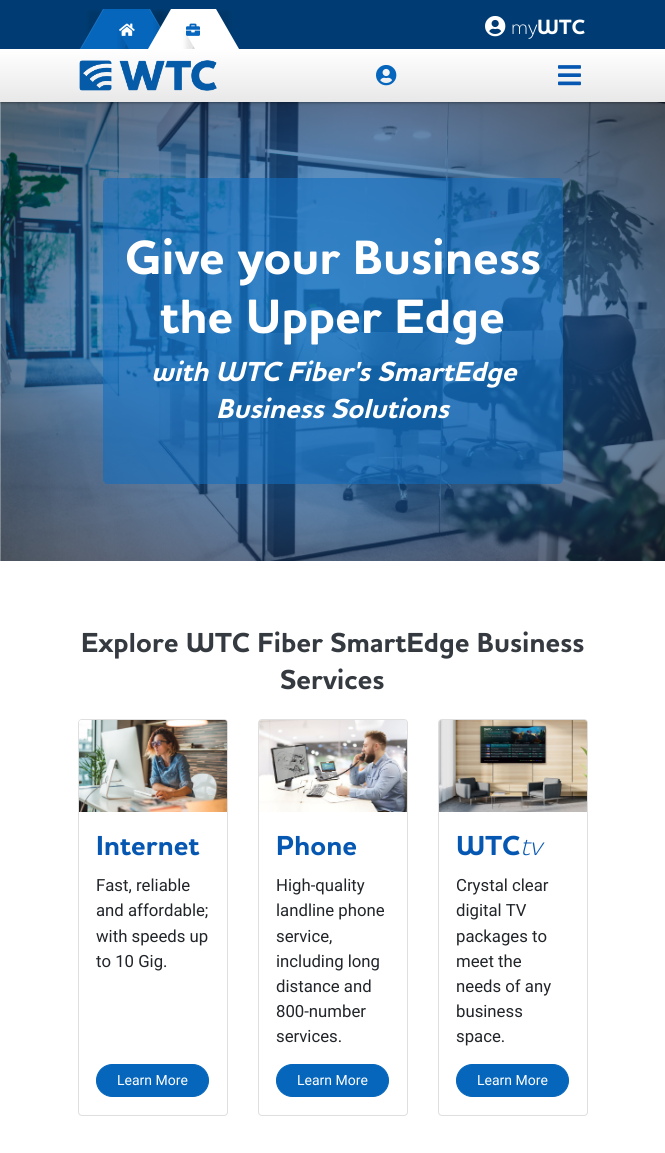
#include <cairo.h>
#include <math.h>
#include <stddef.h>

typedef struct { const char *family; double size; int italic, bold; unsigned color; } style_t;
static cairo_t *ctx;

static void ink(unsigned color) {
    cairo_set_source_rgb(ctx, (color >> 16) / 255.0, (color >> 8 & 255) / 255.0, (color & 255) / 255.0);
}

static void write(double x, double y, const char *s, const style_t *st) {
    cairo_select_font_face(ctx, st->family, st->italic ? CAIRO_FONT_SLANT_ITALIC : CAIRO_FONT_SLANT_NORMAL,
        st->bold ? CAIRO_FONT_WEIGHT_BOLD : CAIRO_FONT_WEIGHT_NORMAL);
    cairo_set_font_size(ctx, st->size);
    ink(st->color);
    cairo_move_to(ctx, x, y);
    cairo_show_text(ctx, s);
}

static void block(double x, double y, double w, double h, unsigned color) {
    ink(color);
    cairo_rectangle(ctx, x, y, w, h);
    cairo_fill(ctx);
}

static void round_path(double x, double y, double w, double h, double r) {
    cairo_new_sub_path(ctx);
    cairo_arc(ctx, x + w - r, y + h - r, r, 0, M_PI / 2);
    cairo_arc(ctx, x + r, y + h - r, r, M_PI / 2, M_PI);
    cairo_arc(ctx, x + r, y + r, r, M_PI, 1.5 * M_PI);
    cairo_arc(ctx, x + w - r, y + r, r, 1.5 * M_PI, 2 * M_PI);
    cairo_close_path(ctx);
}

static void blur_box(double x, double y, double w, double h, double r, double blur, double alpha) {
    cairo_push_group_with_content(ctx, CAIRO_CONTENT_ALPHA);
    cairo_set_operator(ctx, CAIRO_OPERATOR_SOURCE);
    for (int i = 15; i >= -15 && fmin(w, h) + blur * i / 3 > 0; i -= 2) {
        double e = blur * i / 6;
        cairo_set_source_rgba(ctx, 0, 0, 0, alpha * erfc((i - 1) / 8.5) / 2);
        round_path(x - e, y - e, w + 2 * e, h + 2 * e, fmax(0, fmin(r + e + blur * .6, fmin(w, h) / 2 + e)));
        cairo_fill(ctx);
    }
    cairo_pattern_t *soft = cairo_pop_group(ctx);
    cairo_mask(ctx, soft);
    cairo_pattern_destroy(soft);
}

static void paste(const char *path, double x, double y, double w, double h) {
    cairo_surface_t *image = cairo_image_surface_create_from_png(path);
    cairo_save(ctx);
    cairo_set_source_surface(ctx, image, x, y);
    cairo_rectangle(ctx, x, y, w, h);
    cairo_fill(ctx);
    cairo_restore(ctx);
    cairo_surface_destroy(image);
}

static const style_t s1 = {"Roboto", 16.75, 0, 0, 0x212529};
static const style_t s2 = {"Roboto", 14, 0, 0, 0xffffff};

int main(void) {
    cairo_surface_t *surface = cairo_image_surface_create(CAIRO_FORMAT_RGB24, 665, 1153);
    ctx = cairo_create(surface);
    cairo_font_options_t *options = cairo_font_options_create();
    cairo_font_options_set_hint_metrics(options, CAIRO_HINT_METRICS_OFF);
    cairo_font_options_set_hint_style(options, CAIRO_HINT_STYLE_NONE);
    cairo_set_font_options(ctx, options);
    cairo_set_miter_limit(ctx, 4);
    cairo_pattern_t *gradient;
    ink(0xffffff);
    cairo_paint(ctx);
    paste("pic9.png", 0, 102, 665, 459);
    ink(0x000000);
    blur_box(0, 50, 665, 53, 0, 1, 0.24);
    blur_box(0, 50, 665, 53, 0, 1.5, 0.12);
    block(0, 0, 665, 49, 0x003c73);
    block(124, 43, 5, 6, 0x0566bc);
    gradient = cairo_pattern_create_linear(333, 49, 333, 102);
    cairo_pattern_add_color_stop_rgba(gradient, 0, 1, 1, 1, 1);
    cairo_pattern_add_color_stop_rgba(gradient, 1, 0.91, 0.91, 0.91, 1);
    cairo_set_source(ctx, gradient);
    cairo_pattern_destroy(gradient);
    cairo_rectangle(ctx, 0, 49, 665, 53);
    cairo_fill(ctx);
    cairo_save(ctx);
    cairo_rectangle(ctx, 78, 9, 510, 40);
    cairo_clip(ctx);
    ink(0x000000);
    blur_box(88, 11, 44, 40, 0, 2.5, 0.1);
    cairo_restore(ctx);
    ink(0x0566bc);
    cairo_new_path(ctx);
    cairo_move_to(ctx, 103, 9);
    cairo_line_to(ctx, 147, 9);
    cairo_line_to(ctx, 124, 49);
    cairo_line_to(ctx, 80, 49);
    cairo_close_path(ctx);
    cairo_fill(ctx);
    cairo_set_source_rgba(ctx, 1, 1, 1, 0.09);
    cairo_new_path(ctx);
    cairo_move_to(ctx, 103, 9);
    cairo_line_to(ctx, 104, 9);
    cairo_line_to(ctx, 81, 49);
    cairo_line_to(ctx, 80, 49);
    cairo_close_path(ctx);
    cairo_fill(ctx);
    cairo_save(ctx);
    cairo_rectangle(ctx, 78, 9, 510, 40);
    cairo_clip(ctx);
    ink(0x000000);
    blur_box(120, 11, 44, 40, 0, 2.5, 0.1);
    cairo_restore(ctx);
    ink(0x0566bc);
    cairo_new_path(ctx);
    cairo_move_to(ctx, 106, 9);
    cairo_line_to(ctx, 150, 9);
    cairo_line_to(ctx, 173, 49);
    cairo_line_to(ctx, 129, 49);
    cairo_close_path(ctx);
    cairo_fill(ctx);
    cairo_set_source_rgba(ctx, 1, 1, 1, 0.09);
    cairo_new_path(ctx);
    cairo_move_to(ctx, 149, 9);
    cairo_line_to(ctx, 150, 9);
    cairo_line_to(ctx, 173, 49);
    cairo_line_to(ctx, 172, 49);
    cairo_close_path(ctx);
    cairo_fill(ctx);
    paste("pic1.png", 119, 23, 16, 13);
    block(192, 45, 3, 4, 0xffffff);
    cairo_save(ctx);
    cairo_rectangle(ctx, 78, 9, 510, 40);
    cairo_clip(ctx);
    ink(0x000000);
    blur_box(156, 11, 44, 40, 0, 2.5, 0.1);
    cairo_restore(ctx);
    cairo_new_path(ctx);
    cairo_move_to(ctx, 171, 9);
    cairo_line_to(ctx, 215, 9);
    cairo_line_to(ctx, 192, 49);
    cairo_line_to(ctx, 148, 49);
    cairo_close_path(ctx);
    cairo_fill(ctx);
    cairo_set_source_rgba(ctx, 1, 1, 1, 0.09);
    cairo_new_path(ctx);
    cairo_move_to(ctx, 171, 9);
    cairo_line_to(ctx, 172, 9);
    cairo_line_to(ctx, 149, 49);
    cairo_line_to(ctx, 148, 49);
    cairo_close_path(ctx);
    cairo_fill(ctx);
    cairo_save(ctx);
    cairo_rectangle(ctx, 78, 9, 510, 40);
    cairo_clip(ctx);
    ink(0x000000);
    blur_box(186, 11, 44, 40, 0, 2.5, 0.1);
    cairo_restore(ctx);
    ink(0xffffff);
    cairo_new_path(ctx);
    cairo_move_to(ctx, 172, 9);
    cairo_line_to(ctx, 216, 9);
    cairo_line_to(ctx, 239, 49);
    cairo_line_to(ctx, 195, 49);
    cairo_close_path(ctx);
    cairo_fill(ctx);
    cairo_set_source_rgba(ctx, 1, 1, 1, 0.09);
    cairo_new_path(ctx);
    cairo_move_to(ctx, 215, 9);
    cairo_line_to(ctx, 216, 9);
    cairo_line_to(ctx, 239, 49);
    cairo_line_to(ctx, 238, 49);
    cairo_close_path(ctx);
    cairo_fill(ctx);
    paste("pic2.png", 186, 23, 14, 13);
    paste("pic3.png", 485, 16, 21, 21);
    paste("pic4.png", 512, 24, 26, 15);
    paste("pic5.png", 538, 19, 47, 16);
    paste("pic6.png", 79, 60, 138, 31);
    paste("pic7.png", 376, 65, 21, 21);
    paste("pic8.png", 558, 65, 23, 21);
    cairo_set_source_rgba(ctx, 0.075, 0.427, 0.737, 0.6);
    round_path(103, 178, 460, 306, 5);
    cairo_fill(ctx);
    paste("pic10.png", 126, 238, 414, 48);
    paste("pic11.png", 160, 299, 344, 46);
    paste("pic12.png", 153, 360, 365, 28);
    paste("pic13.png", 218, 397, 233, 22);
    paste("pic14.png", 82, 631, 502, 28);
    paste("pic15.png", 281, 668, 103, 22);
    round_path(78.5, 719.5, 149, 396, 3.5);
    ink(0xdfdfdf);
    cairo_set_line_width(ctx, 1);
    cairo_stroke(ctx);
    paste("pic16.png", 79, 720, 148, 92);
    paste("pic17.png", 97, 835, 103, 21);
    write(96, 891, "Fast, reliable", &s1);
    write(96, 916, "and affordable;", &s1);
    write(96, 942, "with speeds up", &s1);
    write(96, 967, "to 10 Gig.", &s1);
    ink(0x0566bc);
    round_path(96.5, 1064.5, 112, 32, 16);
    cairo_fill_preserve(ctx);
    cairo_stroke(ctx);
    write(117, 1085, "Learn More", &s2);
    round_path(258.5, 719.5, 149, 396, 3.5);
    ink(0xdfdfdf);
    cairo_stroke(ctx);
    paste("pic18.png", 259, 720, 148, 92);
    paste("pic19.png", 277, 835, 80, 21);
    write(276, 891, "High-quality", &s1);
    write(276, 916, "landline phone", &s1);
    write(276, 942, "service,", &s1);
    write(276, 967, "including long", &s1);
    write(276, 992, "distance and", &s1);
    write(276, 1017, "800-number", &s1);
    write(276, 1042, "services.", &s1);
    ink(0x0566bc);
    round_path(276.5, 1064.5, 112, 32, 16);
    cairo_fill_preserve(ctx);
    cairo_stroke(ctx);
    write(297, 1085, "Learn More", &s2);
    round_path(438.5, 719.5, 149, 396, 3.5);
    ink(0xdfdfdf);
    cairo_stroke(ctx);
    paste("pic20.png", 439, 720, 148, 92);
    paste("pic21.png", 457, 835, 63, 21);
    paste("pic22.png", 523, 839, 22, 17);
    write(456, 891, "Crystal clear", &s1);
    write(456, 916, "digital TV", &s1);
    write(456, 942, "packages to", &s1);
    write(456, 967, "meet the", &s1);
    write(456, 992, "needs of any", &s1);
    write(456, 1017, "business", &s1);
    write(456, 1042, "space.", &s1);
    ink(0x0566bc);
    round_path(456.5, 1064.5, 112, 32, 16);
    cairo_fill_preserve(ctx);
    cairo_stroke(ctx);
    write(477, 1085, "Learn More", &s2);
    cairo_surface_write_to_png(surface, "screenshot.png");
    cairo_font_options_destroy(options);
    cairo_destroy(ctx);
    cairo_surface_destroy(surface);
    return 0;
}
